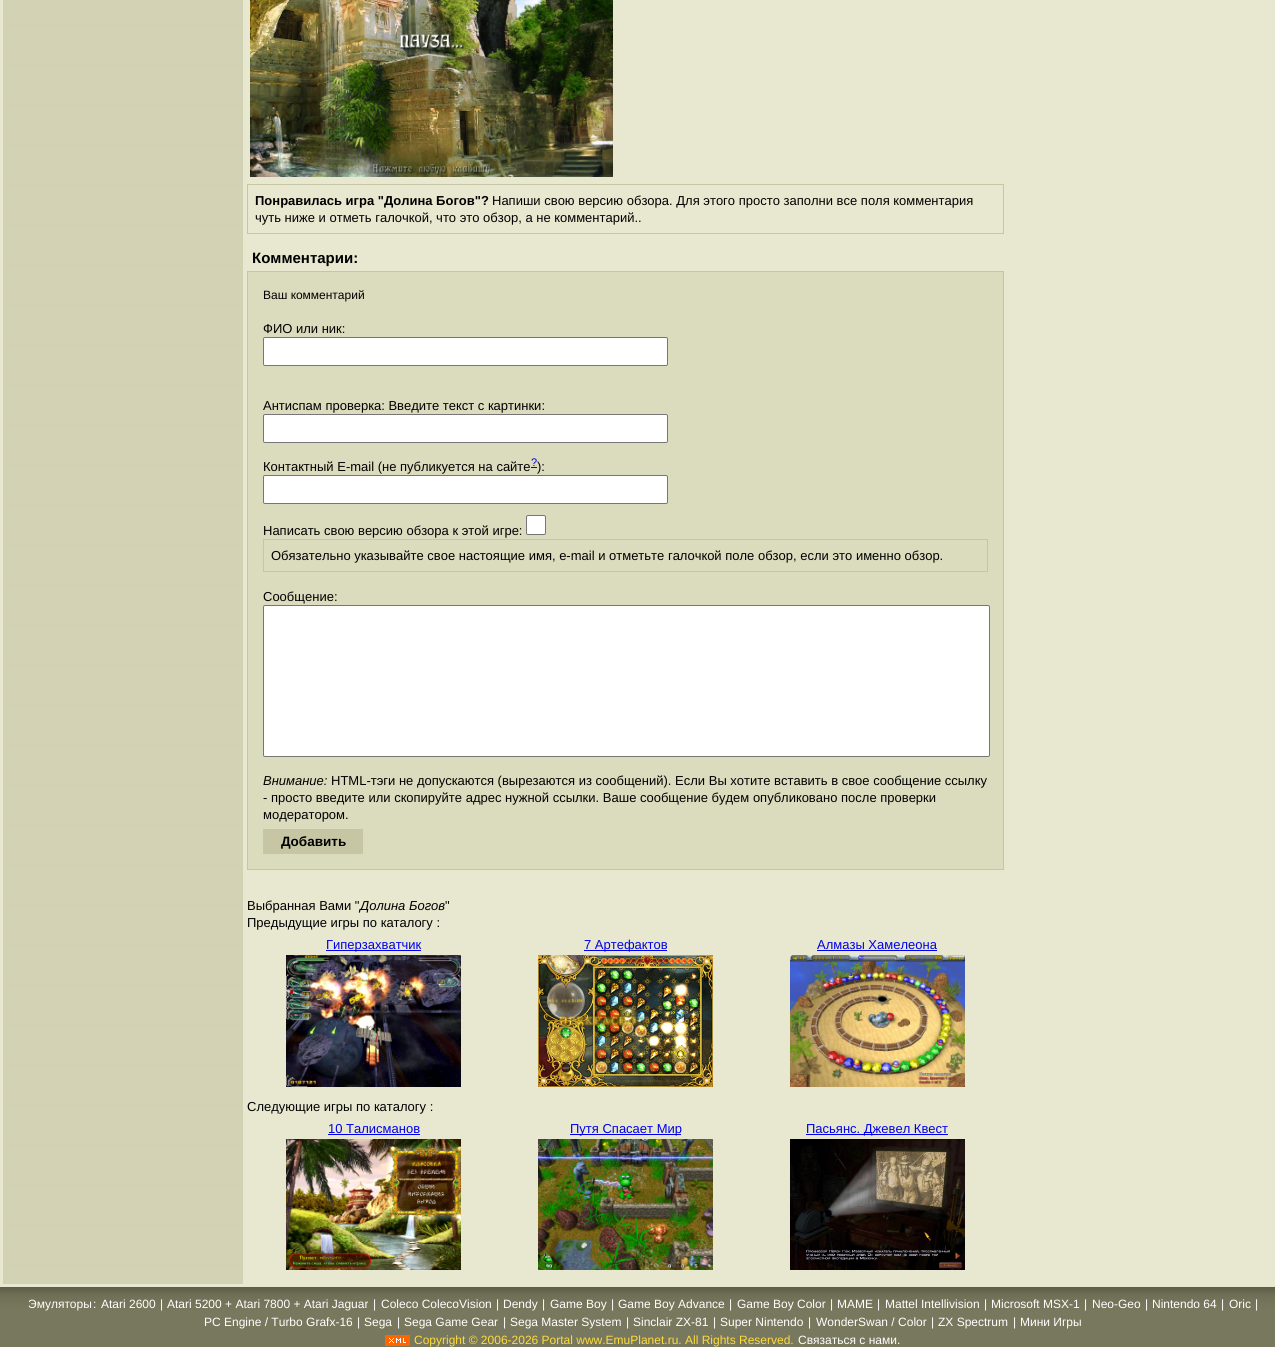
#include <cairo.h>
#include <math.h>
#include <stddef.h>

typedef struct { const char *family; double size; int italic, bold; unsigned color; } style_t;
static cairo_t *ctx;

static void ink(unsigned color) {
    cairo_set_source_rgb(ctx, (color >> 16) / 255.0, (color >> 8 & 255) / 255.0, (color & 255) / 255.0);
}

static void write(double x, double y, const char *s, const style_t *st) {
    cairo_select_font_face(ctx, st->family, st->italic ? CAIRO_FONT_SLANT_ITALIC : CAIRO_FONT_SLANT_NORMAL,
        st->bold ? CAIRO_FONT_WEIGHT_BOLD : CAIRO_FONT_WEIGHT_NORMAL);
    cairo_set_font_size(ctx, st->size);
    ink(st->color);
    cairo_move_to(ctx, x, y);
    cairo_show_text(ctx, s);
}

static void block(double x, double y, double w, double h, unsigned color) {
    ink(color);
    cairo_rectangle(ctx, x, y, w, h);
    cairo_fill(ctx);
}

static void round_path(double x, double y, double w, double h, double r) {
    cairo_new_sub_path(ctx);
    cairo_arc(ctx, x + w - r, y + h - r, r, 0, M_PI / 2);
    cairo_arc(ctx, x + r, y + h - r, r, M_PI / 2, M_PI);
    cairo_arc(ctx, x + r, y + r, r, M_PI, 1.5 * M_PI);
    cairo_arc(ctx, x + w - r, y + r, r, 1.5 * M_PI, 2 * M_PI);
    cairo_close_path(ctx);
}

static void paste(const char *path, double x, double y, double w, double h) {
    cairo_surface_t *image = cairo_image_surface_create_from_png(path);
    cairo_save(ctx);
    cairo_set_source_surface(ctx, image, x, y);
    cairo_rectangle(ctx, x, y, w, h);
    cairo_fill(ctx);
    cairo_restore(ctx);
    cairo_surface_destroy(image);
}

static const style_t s1 = {"Liberation Sans", 13, 0, 1, 0x000000};
static const style_t s2 = {"Liberation Sans", 13, 0, 0, 0x000000};
static const style_t s3 = {"Liberation Sans", 15, 0, 1, 0x000000};
static const style_t s4 = {"Liberation Sans", 12, 0, 0, 0x000000};
static const style_t s5 = {"Liberation Sans", 11, 0, 0, 0x0000ee};
static const style_t s6 = {"Liberation Sans", 13, 1, 0, 0x000000};
static const style_t s7 = {"Liberation Sans", 13.5, 0, 1, 0x000000};
static const style_t s8 = {"Liberation Sans", 13, 0, 0, 0x0000ee};
static const style_t s9 = {"Liberation Sans", 12, 0, 0, 0xffffff};
static const style_t s10 = {"Liberation Sans", 12, 0, 0, 0xfedc3b};

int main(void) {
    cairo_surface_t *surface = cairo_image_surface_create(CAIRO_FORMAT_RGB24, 1275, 1347);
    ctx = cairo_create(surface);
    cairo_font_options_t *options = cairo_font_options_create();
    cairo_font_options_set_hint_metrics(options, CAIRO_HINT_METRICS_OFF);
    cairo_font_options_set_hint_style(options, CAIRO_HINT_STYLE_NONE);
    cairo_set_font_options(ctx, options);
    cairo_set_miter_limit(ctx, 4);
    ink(0xe8e8d0);
    cairo_paint(ctx);
    paste("pic1.png", 3, 0, 240, 1284);
    paste("pic2.png", 250, 0, 363, 177);
    cairo_rectangle(ctx, 247.5, 184.5, 756, 49);
    ink(0xc6c6a5);
    cairo_set_line_width(ctx, 1);
    cairo_stroke(ctx);
    write(255, 205, "Понравилась игра \"Долина Богов\"?", &s1);
    write(492, 205, "Напиши свою версию обзора. Для этого просто заполни все поля комментария", &s2);
    write(255, 222, "чуть ниже и отметь галочкой, что это обзор, а не комментарий..", &s2);
    write(252, 263, "Комментарии:", &s3);
    ink(0xdbdbbe);
    cairo_rectangle(ctx, 247.5, 271.5, 756, 598);
    cairo_fill_preserve(ctx);
    ink(0xc6c6a5);
    cairo_stroke(ctx);
    write(263, 299, "Ваш комментарий", &s4);
    write(263, 333, "ФИО или ник:", &s2);
    ink(0xffffff);
    round_path(263.5, 337.5, 404, 28, 1.5);
    cairo_fill_preserve(ctx);
    ink(0x767676);
    cairo_stroke(ctx);
    write(263, 410, "Антиспам проверка: Введите текст с картинки:", &s2);
    ink(0xffffff);
    round_path(263.5, 414.5, 404, 28, 1.5);
    cairo_fill_preserve(ctx);
    ink(0x767676);
    cairo_stroke(ctx);
    write(263, 471, "Контактный E-mail (не публикуется на сайте", &s2);
    write(531, 466, "?", &s5);
    block(531, 467, 6, 1, 0x0000ee);
    write(537, 471, "):", &s2);
    ink(0xffffff);
    round_path(263.5, 475.5, 404, 28, 1.5);
    cairo_fill_preserve(ctx);
    ink(0x767676);
    cairo_stroke(ctx);
    write(263, 535, "Написать свою версию обзора к этой игре:", &s2);
    ink(0xffffff);
    round_path(526.5, 515.5, 19, 19, 1.5);
    cairo_fill_preserve(ctx);
    ink(0x767676);
    cairo_stroke(ctx);
    cairo_rectangle(ctx, 263.5, 539.5, 724, 32);
    ink(0xc6c6a5);
    cairo_stroke(ctx);
    write(271, 560, "Обязательно указывайте свое настоящие имя, e-mail и отметьте галочкой поле обзор, если это именно обзор.", &s2);
    write(263, 601, "Сообщение:", &s2);
    ink(0xffffff);
    round_path(263.5, 605.5, 726, 151, 1.5);
    cairo_fill_preserve(ctx);
    ink(0x767676);
    cairo_stroke(ctx);
    write(263, 785, "Внимание:", &s6);
    write(331, 785, "HTML-тэги не допускаются (вырезаются из сообщений). Если Вы хотите вставить в свое сообщение ссылку", &s2);
    write(263, 802, "- просто введите или скопируйте адрес нужной ссылки. Ваше сообщение будем опубликовано после проверки", &s2);
    write(263, 819, "модератором.", &s2);
    block(263, 829, 100, 25, 0xc6c6a5);
    write(281, 846, "Добавить", &s7);
    write(247, 910, "Выбранная Вами \"", &s2);
    write(360, 910, "Долина Богов", &s6);
    write(445, 910, "\"", &s2);
    write(247, 927, "Предыдущие игры по каталогу :", &s2);
    block(326, 950, 95, 1, 0x0000ee);
    write(326, 949, "Гиперзахватчик", &s8);
    paste("pic3.png", 286, 955, 175, 132);
    block(584, 950, 83, 1, 0x0000ee);
    write(584, 949, "7 Артефактов", &s8);
    paste("pic4.png", 538, 955, 175, 132);
    write(817, 949, "Алмазы Хамелеона", &s8);
    block(817, 950, 120, 1, 0x0000ee);
    paste("pic5.png", 790, 955, 175, 132);
    write(247, 1111, "Следующие игры по каталогу :", &s2);
    write(328, 1133, "10 Талисманов", &s8);
    block(328, 1134, 92, 1, 0x0000ee);
    paste("pic6.png", 286, 1139, 175, 131);
    block(570, 1134, 111, 1, 0x0000ee);
    write(570, 1133, "Путя Спасает Мир", &s8);
    paste("pic7.png", 538, 1139, 175, 131);
    block(806, 1134, 142, 1, 0x0000ee);
    write(806, 1133, "Пасьянс. Джевел Квест", &s8);
    paste("pic8.png", 790, 1139, 175, 131);
    paste("pic9.png", 0, 1287, 1275, 60);
    write(28, 1308, "Эмуляторы", &s9);
    write(93, 1308, ":", &s9);
    write(101, 1308, "Atari 2600", &s9);
    write(160, 1308, "|", &s9);
    write(167, 1308, "Atari 5200 + Atari 7800 + Atari Jaguar", &s9);
    write(373, 1308, "|", &s9);
    write(381, 1308, "Coleco ColecoVision", &s9);
    write(496, 1308, "|", &s9);
    write(503, 1308, "Dendy", &s9);
    write(542, 1308, "|", &s9);
    write(550, 1308, "Game Boy", &s9);
    write(611, 1308, "|", &s9);
    write(618, 1308, "Game Boy Advance", &s9);
    write(729, 1308, "|", &s9);
    write(737, 1308, "Game Boy Color", &s9);
    write(830, 1308, "|", &s9);
    write(837, 1308, "MAME", &s9);
    write(877, 1308, "|", &s9);
    write(885, 1308, "Mattel Intellivision", &s9);
    write(984, 1308, "|", &s9);
    write(991, 1308, "Microsoft MSX-1", &s9);
    write(1084, 1308, "|", &s9);
    write(1092, 1308, "Neo-Geo", &s9);
    write(1145, 1308, "|", &s9);
    write(1152, 1308, "Nintendo 64", &s9);
    write(1221, 1308, "|", &s9);
    write(1229, 1308, "Oric", &s9);
    write(1255, 1308, "|", &s9);
    write(204, 1326, "PC Engine / Turbo Grafx-16", &s9);
    write(357, 1326, "|", &s9);
    write(364, 1326, "Sega", &s9);
    write(397, 1326, "|", &s9);
    write(404, 1326, "Sega Game Gear", &s9);
    write(503, 1326, "|", &s9);
    write(510, 1326, "Sega Master System", &s9);
    write(626, 1326, "|", &s9);
    write(633, 1326, "Sinclair ZX-81", &s9);
    write(713, 1326, "|", &s9);
    write(720, 1326, "Super Nintendo", &s9);
    write(808, 1326, "|", &s9);
    write(816, 1326, "WonderSwan / Color", &s9);
    write(931, 1326, "|", &s9);
    write(938, 1326, "ZX Spectrum", &s9);
    write(1013, 1326, "|", &s9);
    write(1020, 1326, "Мини Игры", &s9);
    paste("pic10.png", 385, 1335, 25, 11);
    write(414, 1344, "Copyright © 2006-2026 Portal www.EmuPlanet.ru. All Rights Reserved.", &s10);
    write(798, 1344, "Связаться с нами.", &s9);
    cairo_surface_write_to_png(surface, "screenshot.png");
    cairo_font_options_destroy(options);
    cairo_destroy(ctx);
    cairo_surface_destroy(surface);
    return 0;
}
